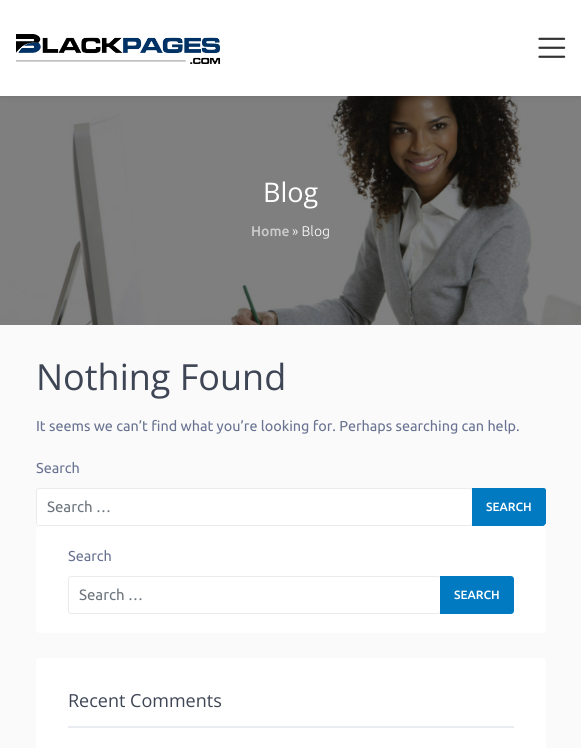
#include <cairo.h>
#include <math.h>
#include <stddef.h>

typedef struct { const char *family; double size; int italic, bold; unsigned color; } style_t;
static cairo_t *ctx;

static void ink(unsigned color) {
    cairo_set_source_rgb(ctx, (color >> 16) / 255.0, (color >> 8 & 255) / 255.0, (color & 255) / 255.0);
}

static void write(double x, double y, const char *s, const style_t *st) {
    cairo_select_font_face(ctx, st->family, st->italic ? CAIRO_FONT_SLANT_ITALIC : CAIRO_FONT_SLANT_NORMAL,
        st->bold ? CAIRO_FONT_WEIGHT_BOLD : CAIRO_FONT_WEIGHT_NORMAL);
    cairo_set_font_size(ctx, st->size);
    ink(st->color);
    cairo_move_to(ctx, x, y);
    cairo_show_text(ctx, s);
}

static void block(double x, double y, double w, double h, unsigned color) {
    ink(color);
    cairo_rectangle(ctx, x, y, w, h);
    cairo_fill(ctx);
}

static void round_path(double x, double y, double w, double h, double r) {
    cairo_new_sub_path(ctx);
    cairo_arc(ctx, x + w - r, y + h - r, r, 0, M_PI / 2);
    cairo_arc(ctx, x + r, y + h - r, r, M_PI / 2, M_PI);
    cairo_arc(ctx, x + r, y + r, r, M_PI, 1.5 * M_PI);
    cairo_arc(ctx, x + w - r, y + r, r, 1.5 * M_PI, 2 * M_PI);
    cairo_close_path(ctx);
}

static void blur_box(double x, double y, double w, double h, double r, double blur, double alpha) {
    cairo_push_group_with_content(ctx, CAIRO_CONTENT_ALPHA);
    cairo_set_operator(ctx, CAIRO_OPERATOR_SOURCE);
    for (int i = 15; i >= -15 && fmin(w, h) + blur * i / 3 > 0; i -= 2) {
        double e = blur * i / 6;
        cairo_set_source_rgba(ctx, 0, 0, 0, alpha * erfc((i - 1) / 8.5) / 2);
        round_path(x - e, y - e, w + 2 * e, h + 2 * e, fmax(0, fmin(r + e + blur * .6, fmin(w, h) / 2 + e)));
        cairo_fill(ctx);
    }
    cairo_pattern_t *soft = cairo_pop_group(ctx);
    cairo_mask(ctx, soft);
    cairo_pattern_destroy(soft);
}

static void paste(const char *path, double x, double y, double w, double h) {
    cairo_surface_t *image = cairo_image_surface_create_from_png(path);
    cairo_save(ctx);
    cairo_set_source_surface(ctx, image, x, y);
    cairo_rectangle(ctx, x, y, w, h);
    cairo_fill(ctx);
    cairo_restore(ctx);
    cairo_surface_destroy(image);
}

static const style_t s1 = {"Open Sans", 27, 0, 0, 0xffffff};
static const style_t s2 = {"Ubuntu Medium", 14, 0, 0, 0xcccccc};
static const style_t s3 = {"Ubuntu Light", 14, 0, 0, 0xffffff};
static const style_t s4 = {"Open Sans", 36, 0, 0, 0x3e4555};
static const style_t s5 = {"Ubuntu", 14.4, 0, 0, 0x697391};
static const style_t s6 = {"Ubuntu", 15, 0, 0, 0x6c757d};
static const style_t s7 = {"Ubuntu Medium", 12, 0, 0, 0xffffff};
static const style_t s8 = {"Open Sans", 18, 0, 0, 0x3e4555};

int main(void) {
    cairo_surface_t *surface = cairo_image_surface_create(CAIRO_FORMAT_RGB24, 581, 748);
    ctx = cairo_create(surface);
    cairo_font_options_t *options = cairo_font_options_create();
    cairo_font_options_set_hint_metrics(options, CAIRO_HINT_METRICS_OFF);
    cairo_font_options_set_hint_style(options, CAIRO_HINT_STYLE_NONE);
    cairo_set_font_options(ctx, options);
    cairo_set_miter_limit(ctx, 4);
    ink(0xfafafa);
    cairo_paint(ctx);
    paste("pic3.png", 0, 96, 581, 229);
    ink(0x000000);
    blur_box(0, 0, 581, 96, 0, 4, 0.12);
    block(0, 0, 581, 96, 0xffffff);
    paste("pic1.png", 16, 34, 204, 30);
    paste("pic2.png", 538, 37, 28, 21);
    write(263, 202, "Blog", &s1);
    write(251, 236, "Home", &s2);
    write(292, 236, "» Blog", &s3);
    write(36, 390, "Nothing Found", &s4);
    write(36, 431, "It seems we can’t find what you’re looking for. Perhaps searching can help.", &s5);
    write(36, 473, "Search", &s5);
    ink(0xffffff);
    round_path(37, 489, 435, 36, 2);
    cairo_fill(ctx);
    ink(0xe9ecef);
    cairo_set_fill_rule(ctx, CAIRO_FILL_RULE_EVEN_ODD);
    cairo_new_path(ctx);
    cairo_move_to(ctx, 39, 488);
    cairo_curve_to(ctx, 37, 488, 36, 489, 36, 491);
    cairo_line_to(ctx, 36, 522);
    cairo_curve_to(ctx, 36, 524, 38, 526, 40, 526);
    cairo_line_to(ctx, 470, 526);
    cairo_curve_to(ctx, 472, 526, 473, 525, 473, 523);
    cairo_line_to(ctx, 473, 491);
    cairo_curve_to(ctx, 473, 489, 472, 488, 470, 488);
    cairo_close_path(ctx);
    cairo_move_to(ctx, 39, 489);
    cairo_curve_to(ctx, 38, 489, 37, 490, 37, 491);
    cairo_line_to(ctx, 37, 523);
    cairo_curve_to(ctx, 37, 524, 38, 525, 39, 525);
    cairo_line_to(ctx, 470, 525);
    cairo_curve_to(ctx, 471, 525, 472, 524, 472, 523);
    cairo_line_to(ctx, 472, 491);
    cairo_curve_to(ctx, 472, 490, 471, 489, 470, 489);
    cairo_close_path(ctx);
    cairo_fill(ctx);
    write(47, 512, "Search …", &s6);
    ink(0x027ac1);
    cairo_new_path(ctx);
    cairo_move_to(ctx, 472, 488);
    cairo_line_to(ctx, 543, 488);
    cairo_curve_to(ctx, 544.5, 488, 546, 489.5, 546, 491);
    cairo_line_to(ctx, 546, 522);
    cairo_curve_to(ctx, 546, 524, 544, 526, 542, 526);
    cairo_line_to(ctx, 472, 526);
    cairo_close_path(ctx);
    cairo_fill(ctx);
    cairo_new_path(ctx);
    cairo_move_to(ctx, 472, 488);
    cairo_line_to(ctx, 472, 526);
    cairo_line_to(ctx, 542, 526);
    cairo_curve_to(ctx, 544, 526, 546, 524, 546, 522);
    cairo_line_to(ctx, 546, 491);
    cairo_curve_to(ctx, 546, 489, 545, 488, 543, 488);
    cairo_close_path(ctx);
    cairo_move_to(ctx, 474, 490);
    cairo_line_to(ctx, 474, 524);
    cairo_line_to(ctx, 543, 524);
    cairo_curve_to(ctx, 544, 524, 544, 524, 544, 523);
    cairo_line_to(ctx, 544, 491);
    cairo_curve_to(ctx, 544, 490, 544, 490, 543, 490);
    cairo_close_path(ctx);
    cairo_fill(ctx);
    write(486, 511, "SEARCH", &s7);
    round_path(36, 526, 510, 107, 4);
    cairo_fill(ctx);
    write(68, 561, "Search", &s5);
    round_path(68.5, 576.5, 372, 37, 2.5);
    ink(0xe9ecef);
    cairo_set_line_width(ctx, 1);
    cairo_stroke(ctx);
    write(79, 600, "Search …", &s6);
    ink(0x027ac1);
    cairo_new_path(ctx);
    cairo_move_to(ctx, 441, 577);
    cairo_line_to(ctx, 511, 577);
    cairo_curve_to(ctx, 512, 577, 513, 578, 513, 579);
    cairo_line_to(ctx, 513, 611);
    cairo_curve_to(ctx, 513, 612, 512, 613, 511, 613);
    cairo_line_to(ctx, 441, 613);
    cairo_close_path(ctx);
    cairo_fill_preserve(ctx);
    cairo_set_line_width(ctx, 2);
    cairo_stroke(ctx);
    write(454, 599, "SEARCH", &s7);
    round_path(36, 658, 510, 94, 4);
    cairo_fill(ctx);
    block(68, 726, 446, 2, 0xe9edf2);
    write(68, 707, "Recent Comments", &s8);
    cairo_surface_write_to_png(surface, "screenshot.png");
    cairo_font_options_destroy(options);
    cairo_destroy(ctx);
    cairo_surface_destroy(surface);
    return 0;
}
